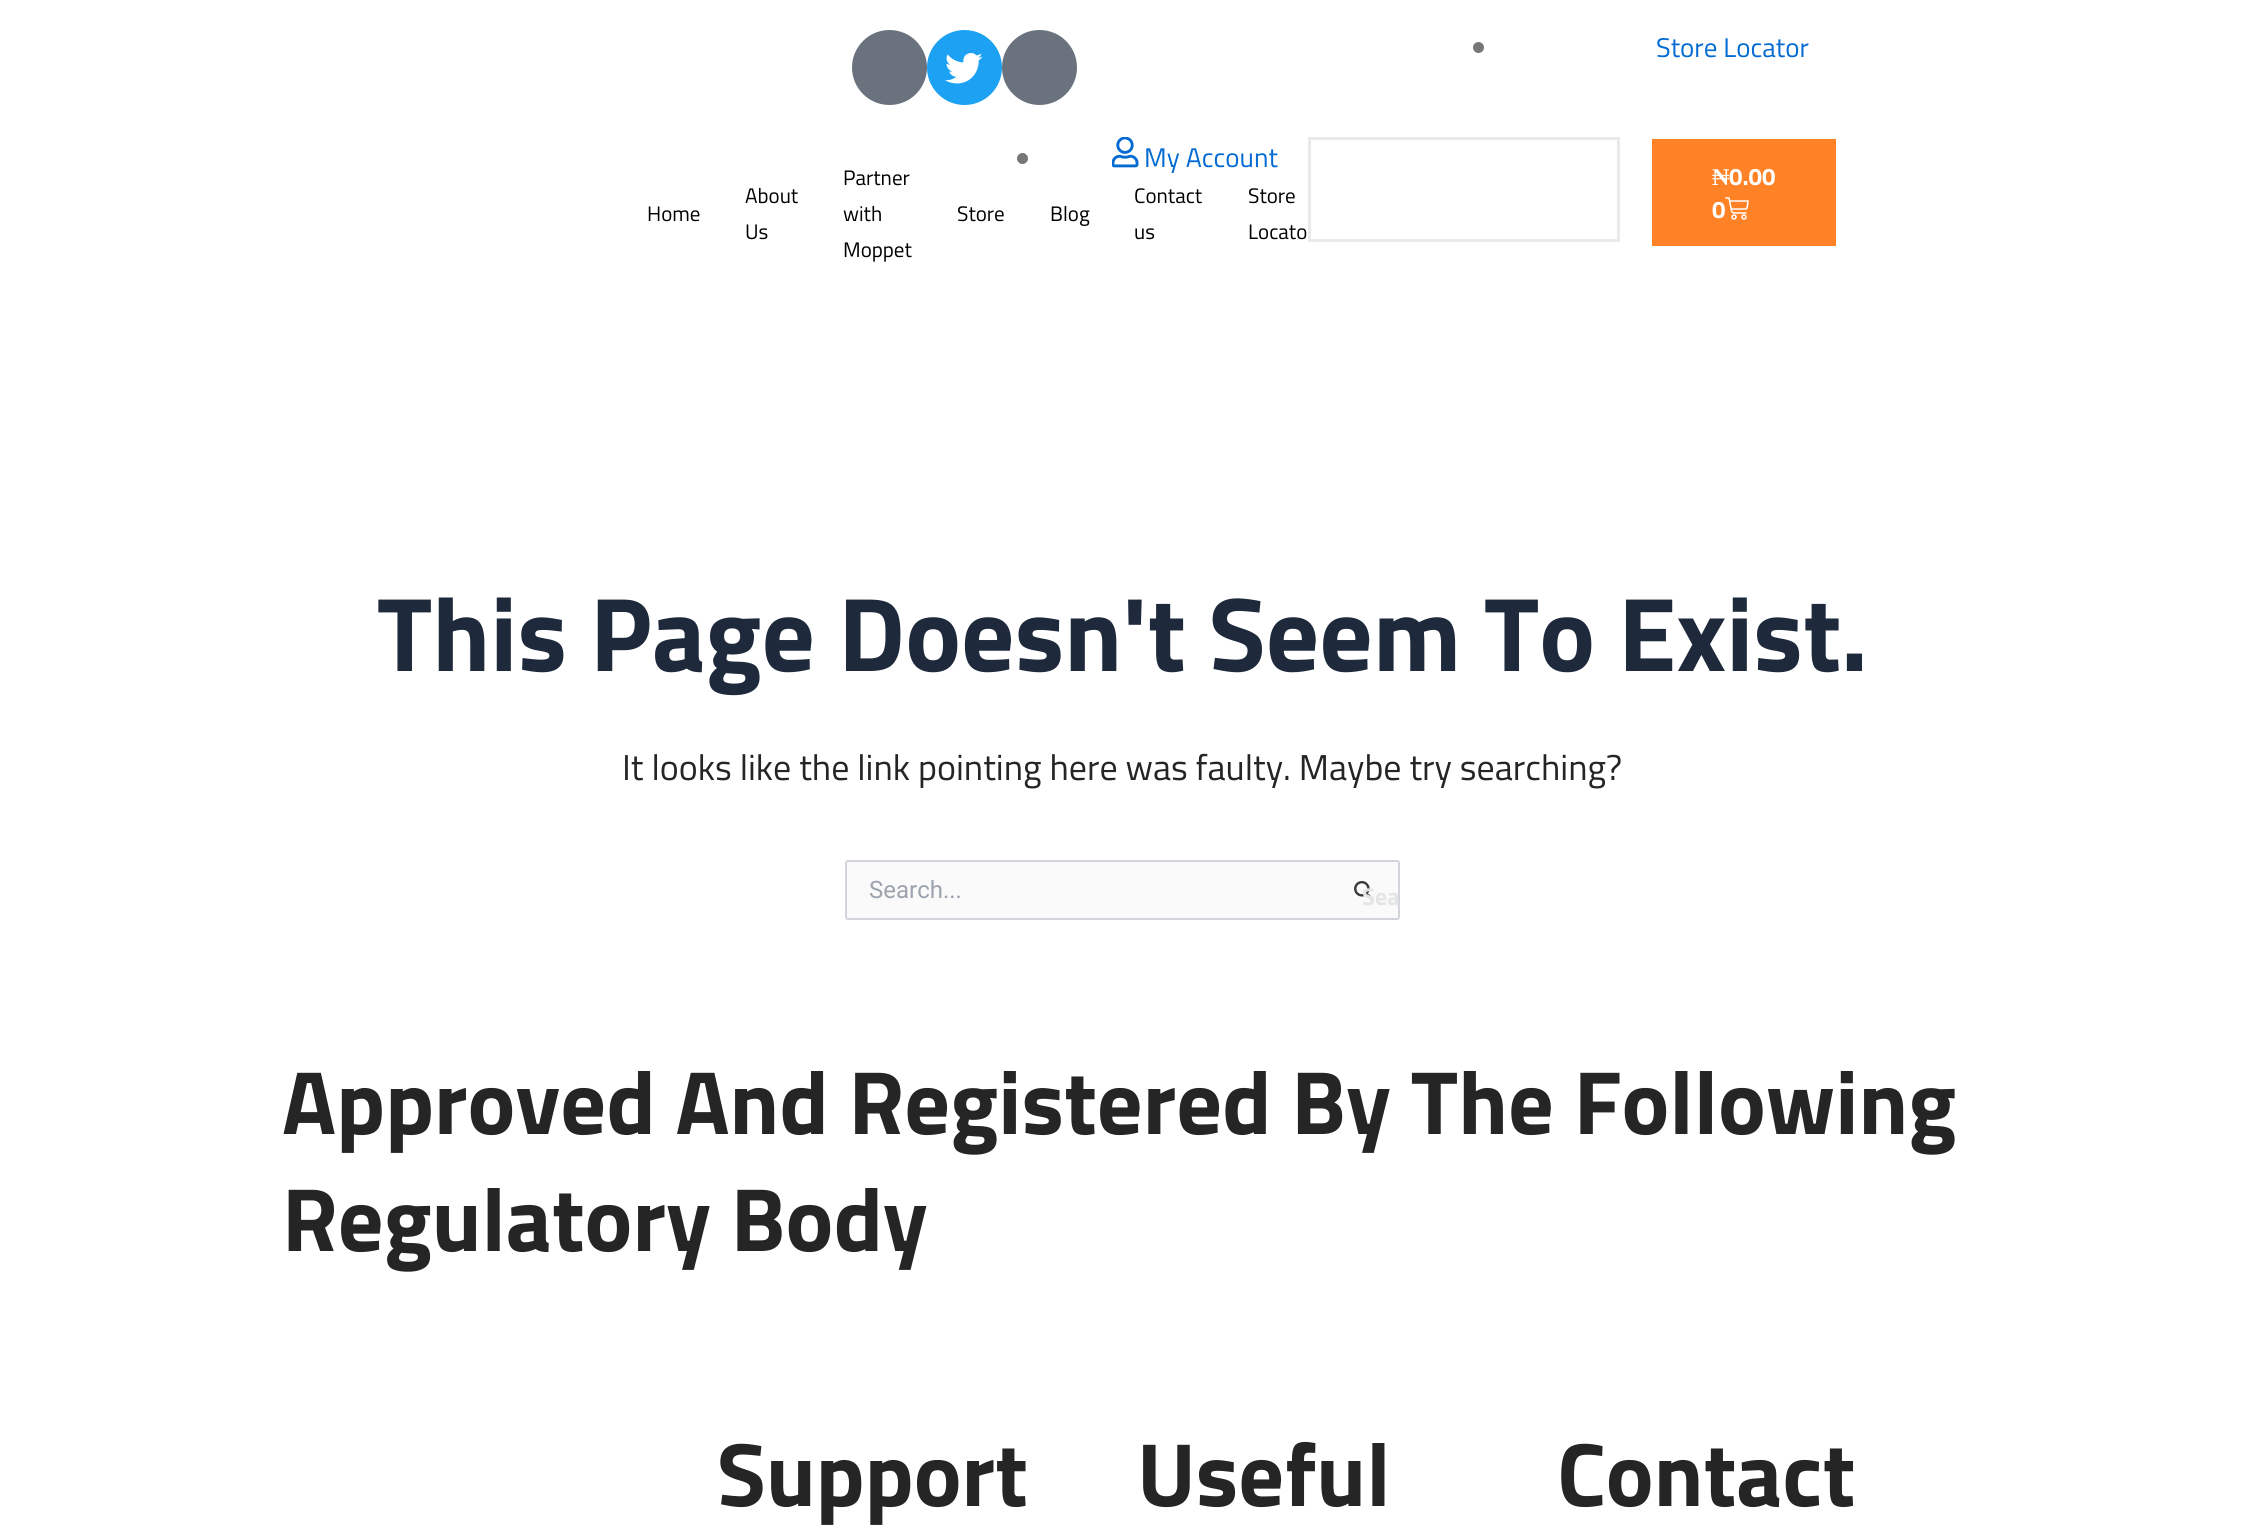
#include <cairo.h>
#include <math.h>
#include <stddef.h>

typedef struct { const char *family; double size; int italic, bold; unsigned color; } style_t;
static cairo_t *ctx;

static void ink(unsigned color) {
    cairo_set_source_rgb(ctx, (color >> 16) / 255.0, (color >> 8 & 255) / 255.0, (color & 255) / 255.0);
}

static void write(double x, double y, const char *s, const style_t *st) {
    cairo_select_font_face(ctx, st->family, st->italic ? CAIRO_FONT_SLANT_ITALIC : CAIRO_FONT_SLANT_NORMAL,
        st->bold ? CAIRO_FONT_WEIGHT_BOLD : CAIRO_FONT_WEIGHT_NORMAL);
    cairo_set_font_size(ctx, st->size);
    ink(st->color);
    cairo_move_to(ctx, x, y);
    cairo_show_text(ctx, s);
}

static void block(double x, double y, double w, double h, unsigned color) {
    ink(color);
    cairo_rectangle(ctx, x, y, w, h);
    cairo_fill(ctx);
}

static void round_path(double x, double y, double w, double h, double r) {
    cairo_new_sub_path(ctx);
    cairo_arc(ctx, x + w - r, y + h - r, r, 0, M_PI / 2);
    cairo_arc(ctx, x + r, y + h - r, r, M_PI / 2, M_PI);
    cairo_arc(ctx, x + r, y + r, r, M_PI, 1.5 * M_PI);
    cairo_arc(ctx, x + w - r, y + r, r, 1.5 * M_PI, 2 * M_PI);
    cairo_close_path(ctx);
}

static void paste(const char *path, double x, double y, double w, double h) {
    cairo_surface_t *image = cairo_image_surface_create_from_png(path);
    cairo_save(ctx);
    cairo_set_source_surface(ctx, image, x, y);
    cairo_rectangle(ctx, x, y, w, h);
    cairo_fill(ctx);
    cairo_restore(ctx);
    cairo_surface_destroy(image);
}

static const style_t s1 = {"Titillium Web", 27, 0, 0, 0x046bd2};
static const style_t s2 = {"Titillium Web", 21, 0, 0, 0x000000};
static const style_t s3 = {"Liberation Serif", 24, 0, 1, 0xffffff};
static const style_t s4 = {"Titillium Web", 24, 0, 1, 0xffffff};
static const style_t s5 = {"Titillium Web", 105, 0, 1, 0x1e293b};
static const style_t s6 = {"Titillium Web", 36, 0, 0, 0x252525};
static const style_t s7 = {"Roboto", 24, 0, 0, 0x9ca3af};
static const style_t s8 = {"Titillium Web", 24, 0, 1, 0xe4e5e5};
static const style_t s9 = {"Titillium Web", 90, 0, 1, 0x252525};

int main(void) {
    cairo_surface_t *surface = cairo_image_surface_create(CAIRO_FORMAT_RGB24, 2244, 1537);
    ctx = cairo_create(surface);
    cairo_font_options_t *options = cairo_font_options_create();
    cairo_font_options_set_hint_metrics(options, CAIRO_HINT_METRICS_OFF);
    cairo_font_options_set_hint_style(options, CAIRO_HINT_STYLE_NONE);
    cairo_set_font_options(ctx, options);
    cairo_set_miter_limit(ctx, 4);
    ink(0xffffff);
    cairo_paint(ctx);
    ink(0x69727d);
    cairo_arc(ctx, 889.5, 67.5, 37.5, 0, 2 * M_PI);
    cairo_fill(ctx);
    ink(0x1da1f2);
    cairo_arc(ctx, 964.5, 67.5, 37.5, 0, 2 * M_PI);
    cairo_fill(ctx);
    paste("pic1.png", 945, 53, 38, 31);
    ink(0x69727d);
    cairo_arc(ctx, 1039.5, 67.5, 37.5, 0, 2 * M_PI);
    cairo_fill(ctx);
    ink(0x777777);
    cairo_arc(ctx, 1478.5, 47.5, 5.5, 0, 2 * M_PI);
    cairo_fill(ctx);
    write(1656, 57, "Store Locator", &s1);
    ink(0x777777);
    cairo_new_path(ctx);
    cairo_arc(ctx, 1022.5, 158.5, 5.5, 0, 2 * M_PI);
    cairo_fill(ctx);
    paste("pic2.png", 1112, 137, 27, 31);
    write(1144, 167, "My Account", &s1);
    cairo_rectangle(ctx, 1309.5, 138.5, 309, 102);
    ink(0xeaeaeb);
    cairo_set_line_width(ctx, 3);
    cairo_stroke(ctx);
    write(647, 221, "Home", &s2);
    write(745, 203, "About", &s2);
    write(745, 239, "Us", &s2);
    write(843, 185, "Partner", &s2);
    write(843, 221, "with", &s2);
    write(843, 257, "Moppet", &s2);
    write(957, 221, "Store", &s2);
    write(1050, 221, "Blog", &s2);
    write(1134, 203, "Contact", &s2);
    write(1134, 239, "us", &s2);
    write(1248, 203, "Store", &s2);
    write(1248, 239, "Locato", &s2);
    block(1652, 139, 184, 107, 0xff8227);
    write(1712, 185, "₦", &s3);
    write(1729, 185, "0.00", &s4);
    write(1712, 218, "0", &s4);
    paste("pic3.png", 1725, 197, 24, 23);
    write(377, 671, "This Page Doesn't Seem To Exist.", &s5);
    write(622, 780, "It looks like the link pointing here was faulty. Maybe try searching?", &s6);
    ink(0xfafafa);
    round_path(846, 861, 553, 58, 2);
    cairo_fill_preserve(ctx);
    ink(0xd1d5db);
    cairo_set_line_width(ctx, 2);
    cairo_stroke(ctx);
    write(869, 898, "Search...", &s7);
    paste("pic4.png", 1354, 881, 20, 21);
    write(1362, 905, "Sea", &s8);
    write(282, 1134, "Approved And Registered By The Following", &s9);
    write(282, 1251, "Regulatory Body", &s9);
    write(717, 1506, "Support", &s9);
    write(1137, 1506, "Useful", &s9);
    write(1557, 1506, "Contact", &s9);
    cairo_surface_write_to_png(surface, "screenshot.png");
    cairo_font_options_destroy(options);
    cairo_destroy(ctx);
    cairo_surface_destroy(surface);
    return 0;
}
